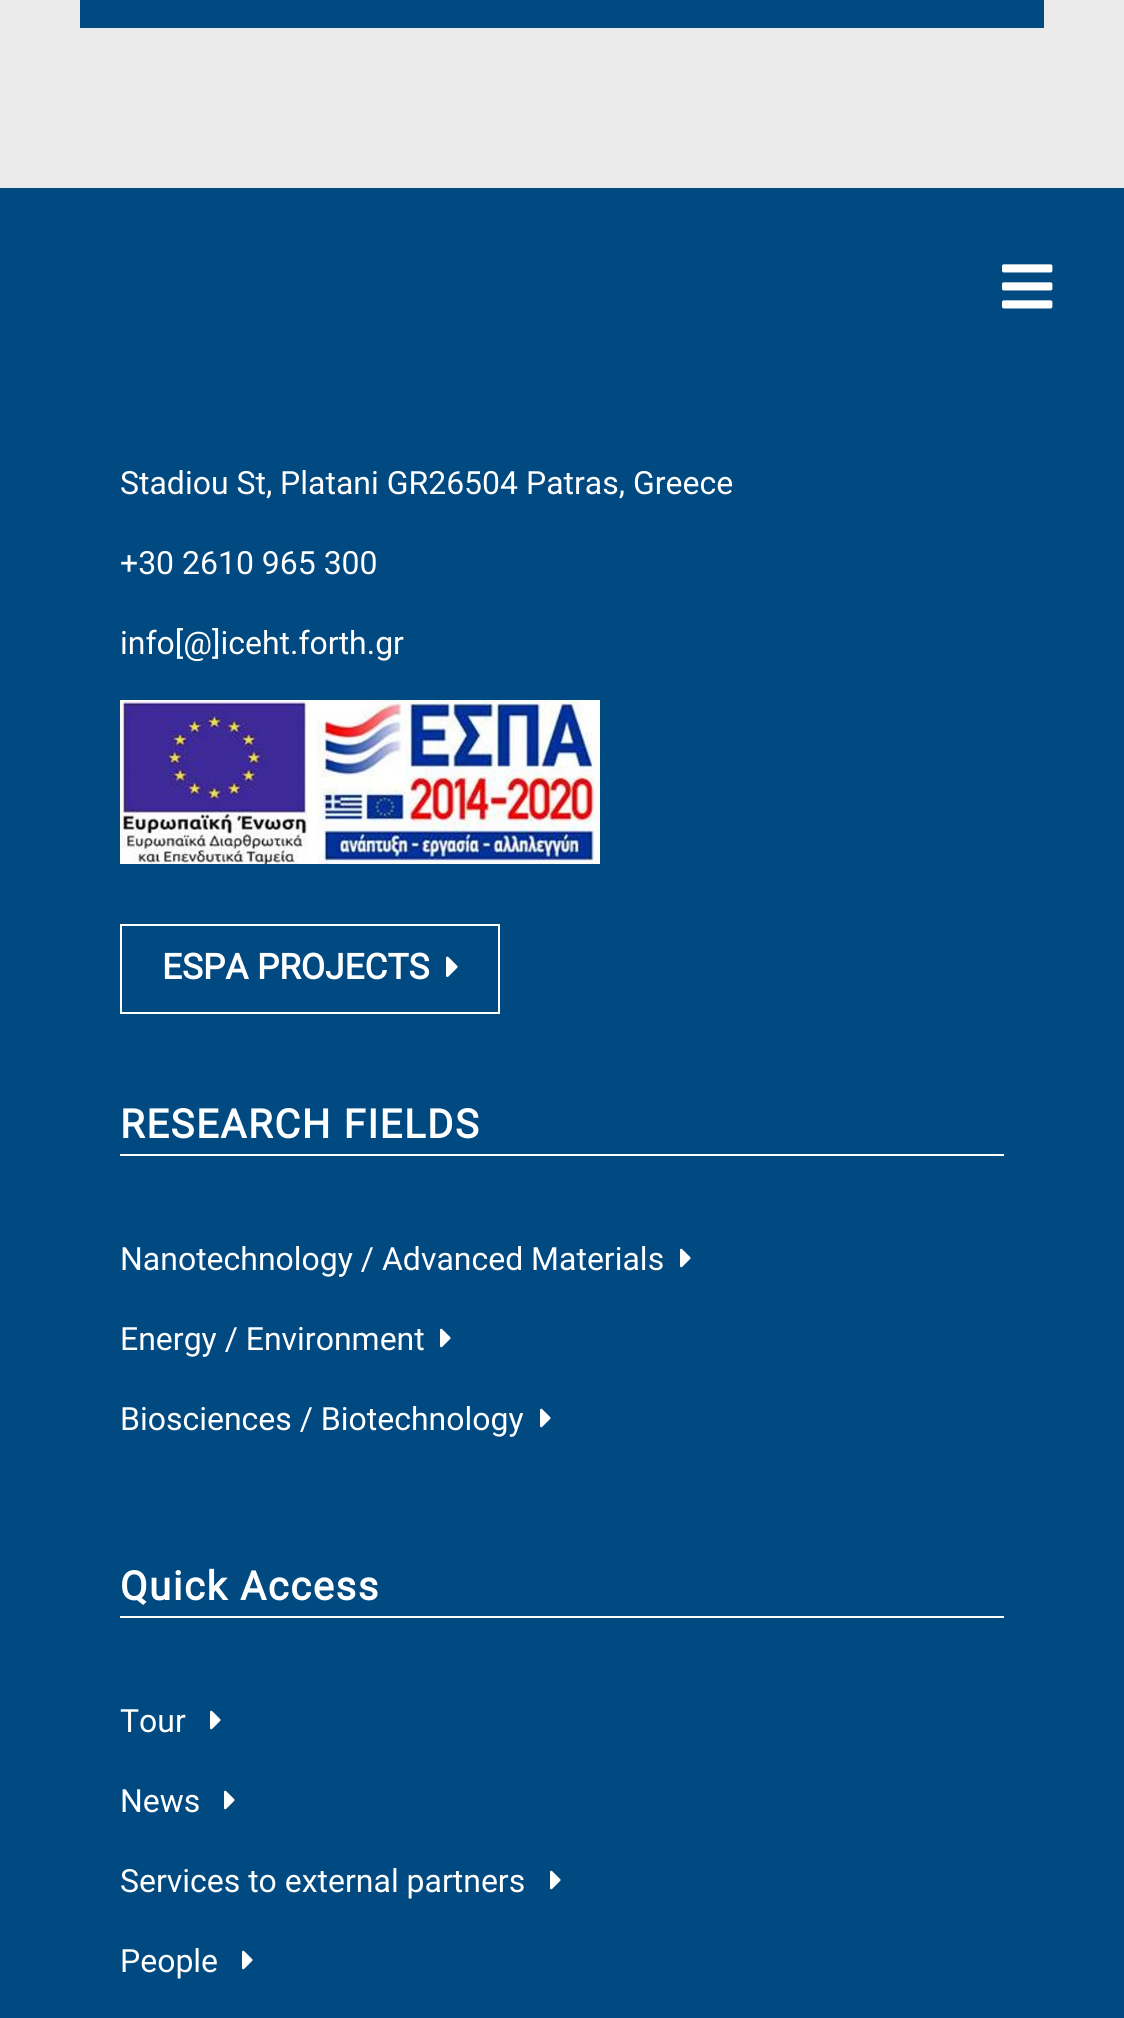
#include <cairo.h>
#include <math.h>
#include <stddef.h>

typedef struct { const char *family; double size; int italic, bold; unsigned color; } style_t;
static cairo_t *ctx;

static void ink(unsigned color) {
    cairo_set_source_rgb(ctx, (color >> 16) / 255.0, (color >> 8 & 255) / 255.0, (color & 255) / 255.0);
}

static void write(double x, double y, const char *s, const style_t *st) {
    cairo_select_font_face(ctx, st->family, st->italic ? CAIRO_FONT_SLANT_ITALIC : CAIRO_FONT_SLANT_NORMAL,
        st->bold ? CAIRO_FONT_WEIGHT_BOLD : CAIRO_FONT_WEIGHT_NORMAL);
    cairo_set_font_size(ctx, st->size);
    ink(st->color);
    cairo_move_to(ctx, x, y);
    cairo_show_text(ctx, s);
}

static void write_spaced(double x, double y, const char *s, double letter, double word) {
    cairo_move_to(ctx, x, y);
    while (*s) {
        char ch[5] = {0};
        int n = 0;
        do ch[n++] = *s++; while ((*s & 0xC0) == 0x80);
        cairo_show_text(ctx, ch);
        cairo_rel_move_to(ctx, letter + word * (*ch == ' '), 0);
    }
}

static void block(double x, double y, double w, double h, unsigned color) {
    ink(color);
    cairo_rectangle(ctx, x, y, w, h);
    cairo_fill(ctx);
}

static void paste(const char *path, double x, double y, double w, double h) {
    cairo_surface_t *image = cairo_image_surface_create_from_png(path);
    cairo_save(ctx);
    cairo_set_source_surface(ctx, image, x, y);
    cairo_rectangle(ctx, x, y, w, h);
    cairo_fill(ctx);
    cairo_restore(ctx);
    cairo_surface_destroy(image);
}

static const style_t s1 = {"Roboto", 32, 0, 0, 0xffffff};
static const style_t s2 = {"Roboto", 35.25, 0, 1, 0xffffff};

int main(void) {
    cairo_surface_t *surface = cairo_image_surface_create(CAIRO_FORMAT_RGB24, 1124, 2018);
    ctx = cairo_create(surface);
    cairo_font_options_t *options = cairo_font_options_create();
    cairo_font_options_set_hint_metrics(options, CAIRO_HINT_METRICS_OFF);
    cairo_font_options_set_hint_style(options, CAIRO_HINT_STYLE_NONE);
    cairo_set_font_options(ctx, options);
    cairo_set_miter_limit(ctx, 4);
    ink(0xebebeb);
    cairo_paint(ctx);
    block(80, 0, 964, 28, 0x014a81);
    block(0, 188, 1124, 1830, 0x014a81);
    paste("pic1.png", 1002, 264, 51, 45);
    write(120, 494, "Stadiou St, Platani GR26504 Patras, Greece", &s1);
    write(120, 574, "+30 2610 965 300", &s1);
    write(120, 654, "info[@]iceht.forth.gr", &s1);
    paste("pic2.png", 120, 700, 480, 164);
    cairo_rectangle(ctx, 121, 925, 378, 88);
    cairo_stroke(ctx);
    write(162, 979, "ESPA PROJECTS", &s2);
    paste("pic3.png", 446, 956, 12, 21);
    block(120, 1154, 884, 2, 0xffffff);
    cairo_set_font_size(ctx, 40);
    write_spaced(120, 1138, "RESEARCH FIELDS", 1.6, 0);
    write(120, 1270, "Nanotechnology / Advanced Materials", &s1);
    paste("pic4.png", 680, 1248, 11, 20);
    write(120, 1350, "Energy / Environment", &s1);
    paste("pic4.png", 440, 1328, 11, 20);
    write(120, 1430, "Biosciences / Biotechnology", &s1);
    paste("pic4.png", 540, 1408, 11, 20);
    block(120, 1616, 884, 2, 0xffffff);
    cairo_select_font_face(ctx, "Roboto", CAIRO_FONT_SLANT_NORMAL, CAIRO_FONT_WEIGHT_BOLD);
    cairo_set_font_size(ctx, 40);
    write_spaced(120, 1600, "Quick Access", 1.6, 0);
    write(120, 1732, "Tour", &s1);
    paste("pic4.png", 210, 1710, 11, 20);
    write(120, 1812, "News", &s1);
    paste("pic4.png", 224, 1790, 11, 20);
    write(120, 1892, "Services to external partners", &s1);
    paste("pic4.png", 550, 1870, 11, 20);
    write(120, 1972, "People", &s1);
    paste("pic4.png", 242, 1950, 11, 20);
    cairo_surface_write_to_png(surface, "screenshot.png");
    cairo_font_options_destroy(options);
    cairo_destroy(ctx);
    cairo_surface_destroy(surface);
    return 0;
}
